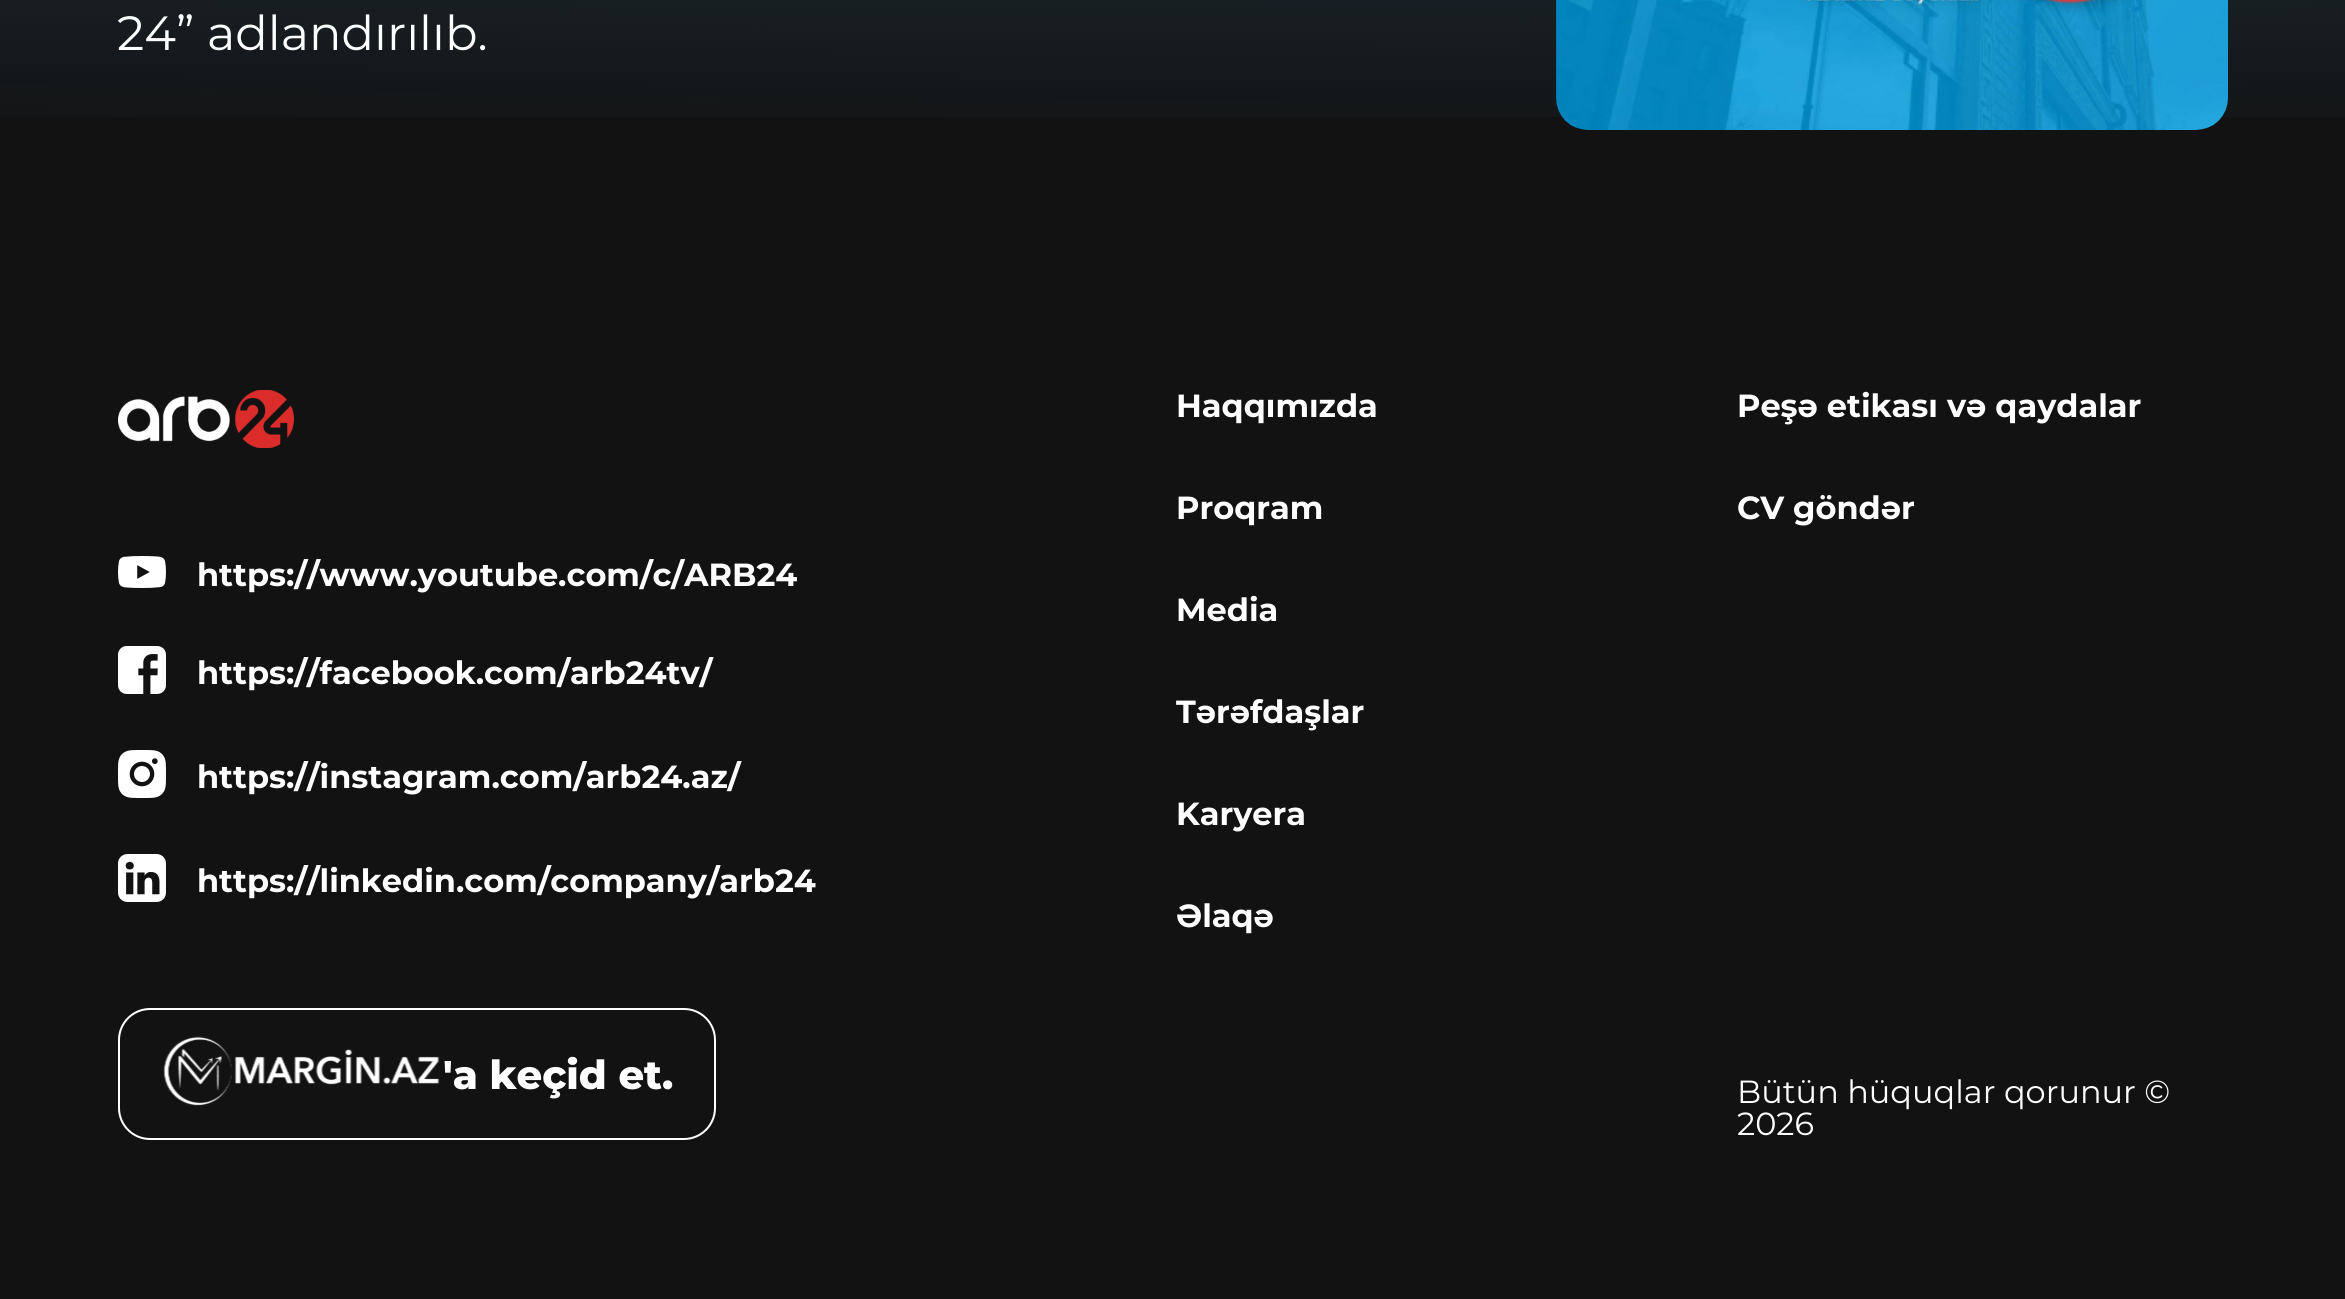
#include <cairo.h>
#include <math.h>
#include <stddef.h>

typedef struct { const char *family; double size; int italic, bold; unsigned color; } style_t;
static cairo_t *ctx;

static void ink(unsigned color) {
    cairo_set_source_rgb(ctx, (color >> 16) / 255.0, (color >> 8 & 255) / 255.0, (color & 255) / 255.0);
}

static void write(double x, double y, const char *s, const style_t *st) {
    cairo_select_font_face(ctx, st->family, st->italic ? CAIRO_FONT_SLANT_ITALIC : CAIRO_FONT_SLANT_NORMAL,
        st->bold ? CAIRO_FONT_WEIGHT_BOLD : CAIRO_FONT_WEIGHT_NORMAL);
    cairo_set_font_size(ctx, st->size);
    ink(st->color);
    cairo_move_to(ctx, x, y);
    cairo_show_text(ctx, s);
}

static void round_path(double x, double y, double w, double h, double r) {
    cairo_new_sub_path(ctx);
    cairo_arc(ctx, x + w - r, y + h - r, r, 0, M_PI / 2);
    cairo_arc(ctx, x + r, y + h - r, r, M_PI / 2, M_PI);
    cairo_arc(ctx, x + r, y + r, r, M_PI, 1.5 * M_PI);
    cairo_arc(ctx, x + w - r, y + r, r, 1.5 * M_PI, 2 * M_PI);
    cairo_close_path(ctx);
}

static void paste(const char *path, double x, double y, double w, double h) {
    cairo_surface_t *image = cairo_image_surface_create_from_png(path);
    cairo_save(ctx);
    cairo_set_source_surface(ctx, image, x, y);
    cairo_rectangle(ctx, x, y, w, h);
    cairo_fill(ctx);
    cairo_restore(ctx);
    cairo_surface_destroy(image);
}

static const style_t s1 = {"Montserrat", 48, 0, 0, 0xffffff};
static const style_t s2 = {"Montserrat", 32, 0, 1, 0xffffff};
static const style_t s3 = {"Montserrat ExtraBold", 40, 0, 0, 0xffffff};
static const style_t s4 = {"Montserrat", 32, 0, 0, 0xffffff};

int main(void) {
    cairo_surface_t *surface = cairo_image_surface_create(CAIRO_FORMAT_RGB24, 2345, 1299);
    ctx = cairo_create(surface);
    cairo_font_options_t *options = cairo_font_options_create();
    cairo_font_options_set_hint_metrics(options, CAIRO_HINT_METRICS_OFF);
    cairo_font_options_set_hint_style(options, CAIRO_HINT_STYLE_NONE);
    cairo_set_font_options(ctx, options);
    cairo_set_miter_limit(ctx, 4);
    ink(0x121212);
    cairo_paint(ctx);
    paste("pic1.png", 0, 0, 2345, 117);
    write(117, 50, "24” adlandırılıb.", &s1);
    paste("pic2.png", 1556, 0, 672, 130);
    paste("pic3.png", 118, 390, 176, 58);
    paste("pic4.png", 118, 556, 48, 32);
    write(197, 586, "https://www.youtube.com/c/ARB24", &s2);
    paste("pic5.png", 118, 646, 48, 48);
    write(197, 684, "https://facebook.com/arb24tv/", &s2);
    paste("pic6.png", 118, 750, 48, 48);
    write(197, 788, "https://instagram.com/arb24.az/", &s2);
    paste("pic7.png", 118, 854, 48, 48);
    write(197, 892, "https://linkedin.com/company/arb24", &s2);
    round_path(119, 1009, 596, 130, 31);
    cairo_stroke(ctx);
    paste("pic8.png", 163, 1036, 277, 70);
    write(443, 1089, "'a keçid et.", &s3);
    write(1176, 417, "Haqqımızda", &s2);
    write(1176, 519, "Proqram", &s2);
    write(1176, 621, "Media", &s2);
    write(1176, 723, "Tərəfdaşlar", &s2);
    write(1176, 825, "Karyera", &s2);
    write(1176, 927, "Əlaqə", &s2);
    write(1737, 417, "Peşə etikası və qaydalar", &s2);
    write(1737, 519, "CV göndər", &s2);
    write(1737, 1103, "Bütün hüquqlar qorunur ©", &s4);
    write(1737, 1135, "2026", &s4);
    cairo_surface_write_to_png(surface, "screenshot.png");
    cairo_font_options_destroy(options);
    cairo_destroy(ctx);
    cairo_surface_destroy(surface);
    return 0;
}
